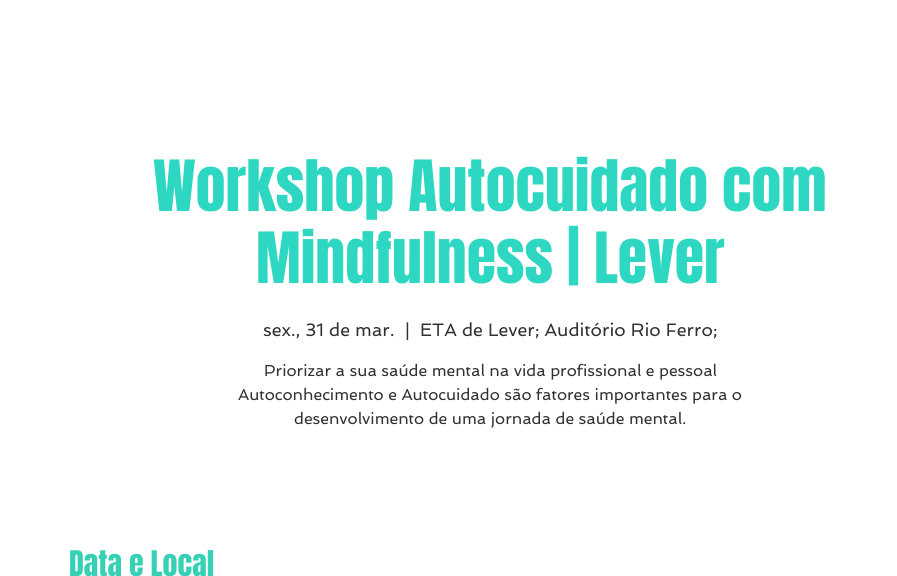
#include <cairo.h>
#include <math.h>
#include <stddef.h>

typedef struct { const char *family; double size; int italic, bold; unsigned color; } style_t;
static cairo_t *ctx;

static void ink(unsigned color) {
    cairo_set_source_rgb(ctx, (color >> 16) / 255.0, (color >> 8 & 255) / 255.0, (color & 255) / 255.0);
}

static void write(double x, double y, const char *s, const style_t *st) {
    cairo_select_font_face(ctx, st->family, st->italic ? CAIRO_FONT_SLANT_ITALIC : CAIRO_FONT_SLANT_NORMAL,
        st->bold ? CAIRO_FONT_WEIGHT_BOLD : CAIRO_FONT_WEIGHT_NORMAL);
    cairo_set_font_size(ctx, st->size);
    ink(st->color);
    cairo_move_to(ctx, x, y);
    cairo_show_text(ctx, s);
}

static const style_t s1 = {"Anton", 60, 0, 0, 0x2ed7c1};
static const style_t s2 = {"Spinnaker", 18, 0, 0, 0x303030};
static const style_t s3 = {"Spinnaker", 16, 0, 0, 0x303030};
static const style_t s4 = {"Anton", 30, 0, 0, 0x36d1b5};

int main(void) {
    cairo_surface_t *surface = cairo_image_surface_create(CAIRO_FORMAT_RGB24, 897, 576);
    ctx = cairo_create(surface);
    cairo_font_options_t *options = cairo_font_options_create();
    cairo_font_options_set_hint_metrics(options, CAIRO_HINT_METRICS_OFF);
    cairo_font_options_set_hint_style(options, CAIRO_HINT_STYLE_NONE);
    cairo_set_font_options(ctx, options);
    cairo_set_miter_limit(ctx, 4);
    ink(0xffffff);
    cairo_paint(ctx);
    write(153, 211, "Workshop Autocuidado com", &s1);
    write(256, 283, "Mindfulness | Lever", &s1);
    write(263, 336, "sex., 31 de mar.", &s2);
    write(405, 336, "|", &s2);
    write(420, 336, "ETA de Lever; Auditório Rio Ferro;", &s2);
    write(264, 376, "Priorizar a sua saúde mental na vida profissional e pessoal", &s3);
    write(238, 400, "Autoconhecimento e Autocuidado são fatores importantes para o", &s3);
    write(294, 424, "desenvolvimento de uma jornada de saúde mental.", &s3);
    write(69, 576, "Data e Local", &s4);
    cairo_surface_write_to_png(surface, "screenshot.png");
    cairo_font_options_destroy(options);
    cairo_destroy(ctx);
    cairo_surface_destroy(surface);
    return 0;
}
